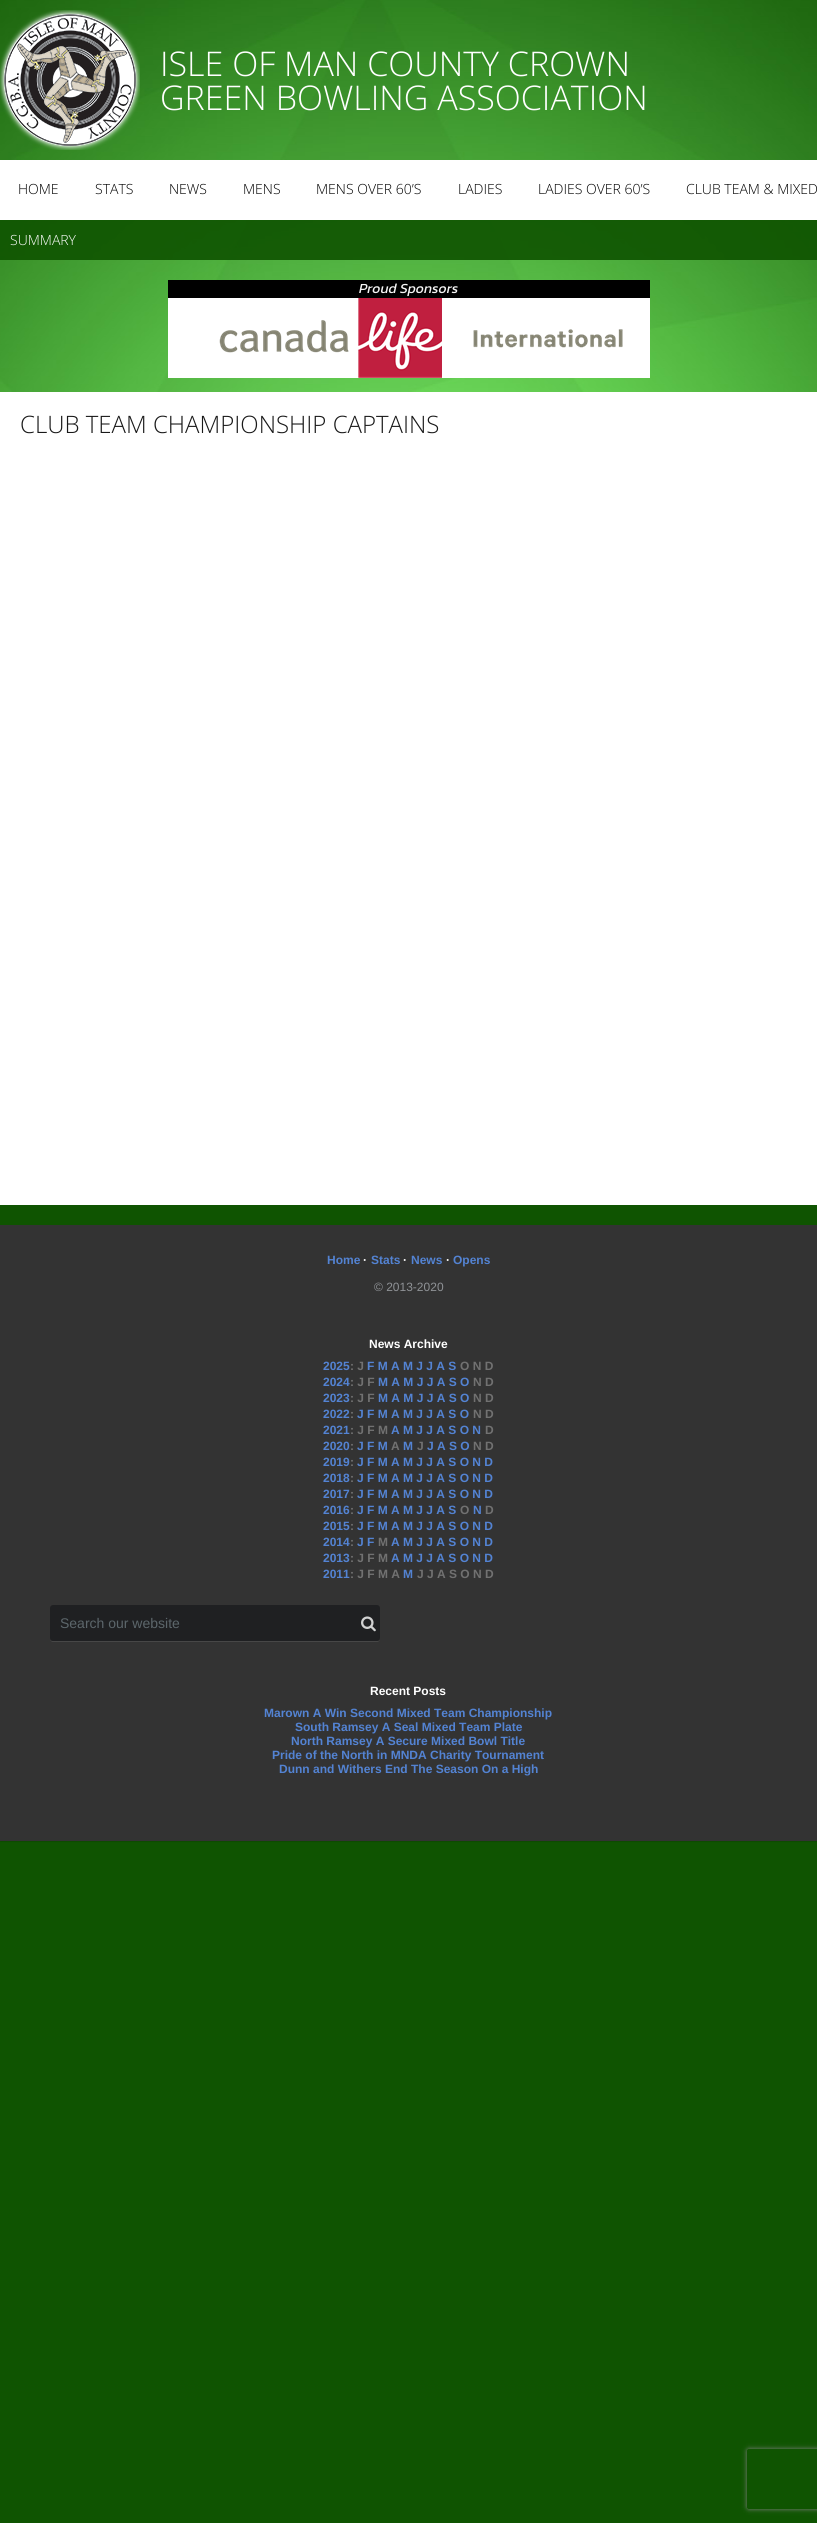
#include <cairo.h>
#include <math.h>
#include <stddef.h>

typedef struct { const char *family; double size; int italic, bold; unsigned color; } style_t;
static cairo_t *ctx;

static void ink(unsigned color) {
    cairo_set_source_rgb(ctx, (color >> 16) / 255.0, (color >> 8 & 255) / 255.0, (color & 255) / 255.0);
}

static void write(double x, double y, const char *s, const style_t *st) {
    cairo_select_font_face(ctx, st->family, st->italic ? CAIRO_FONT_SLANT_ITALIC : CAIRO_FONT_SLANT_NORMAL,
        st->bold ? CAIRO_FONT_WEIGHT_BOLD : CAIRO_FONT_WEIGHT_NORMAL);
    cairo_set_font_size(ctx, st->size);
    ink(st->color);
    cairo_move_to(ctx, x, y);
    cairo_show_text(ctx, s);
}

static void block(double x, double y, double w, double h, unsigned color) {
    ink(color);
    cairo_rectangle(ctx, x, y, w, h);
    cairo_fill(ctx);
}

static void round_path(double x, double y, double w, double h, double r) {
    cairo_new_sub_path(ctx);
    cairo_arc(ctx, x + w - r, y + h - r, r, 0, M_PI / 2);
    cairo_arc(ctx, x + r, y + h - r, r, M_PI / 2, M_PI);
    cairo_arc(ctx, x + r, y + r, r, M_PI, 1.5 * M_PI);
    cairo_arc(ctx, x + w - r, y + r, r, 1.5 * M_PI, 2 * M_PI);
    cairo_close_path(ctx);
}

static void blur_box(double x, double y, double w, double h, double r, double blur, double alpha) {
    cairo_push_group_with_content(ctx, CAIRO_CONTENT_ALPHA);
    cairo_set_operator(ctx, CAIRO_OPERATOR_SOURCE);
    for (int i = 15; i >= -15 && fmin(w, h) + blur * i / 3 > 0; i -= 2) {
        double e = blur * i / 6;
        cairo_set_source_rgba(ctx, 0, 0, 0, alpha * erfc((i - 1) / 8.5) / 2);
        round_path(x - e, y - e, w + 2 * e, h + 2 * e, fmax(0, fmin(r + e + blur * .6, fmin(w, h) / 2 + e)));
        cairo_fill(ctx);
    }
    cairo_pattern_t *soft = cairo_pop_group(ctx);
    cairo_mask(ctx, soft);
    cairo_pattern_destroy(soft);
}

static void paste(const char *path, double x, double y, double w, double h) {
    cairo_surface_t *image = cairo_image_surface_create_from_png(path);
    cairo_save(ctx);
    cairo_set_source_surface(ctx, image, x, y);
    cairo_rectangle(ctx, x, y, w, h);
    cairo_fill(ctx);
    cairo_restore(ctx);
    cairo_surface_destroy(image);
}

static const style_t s1 = {"Open Sans Light", 34, 0, 0, 0xffffff};
static const style_t s2 = {"Open Sans Light", 14, 0, 0, 0x000000};
static const style_t s3 = {"Open Sans Light", 14, 0, 0, 0xffffff};
static const style_t s4 = {"Kanit", 14, 1, 0, 0xf5f5f5};
static const style_t s5 = {"Open Sans Light", 24, 0, 0, 0x191919};
static const style_t s6 = {"Liberation Sans", 12, 0, 1, 0x5383d3};
static const style_t s7 = {"Liberation Sans", 12, 0, 1, 0xffffff};
static const style_t s8 = {"Liberation Sans", 12, 0, 0, 0x8f9296};
static const style_t s9 = {"Liberation Sans", 12, 0, 1, 0x717171};
static const style_t s10 = {"Liberation Sans", 14, 0, 0, 0x5c666b};

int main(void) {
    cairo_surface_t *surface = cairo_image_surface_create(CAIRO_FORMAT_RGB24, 817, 2523);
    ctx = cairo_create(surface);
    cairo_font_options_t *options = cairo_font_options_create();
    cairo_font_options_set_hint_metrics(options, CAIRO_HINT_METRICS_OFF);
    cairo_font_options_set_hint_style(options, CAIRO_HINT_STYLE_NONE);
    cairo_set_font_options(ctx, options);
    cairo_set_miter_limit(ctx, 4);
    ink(0x0f5401);
    cairo_paint(ctx);
    paste("pic1.png", 0, 0, 817, 392);
    paste("pic2.png", 0, 10, 140, 140);
    write(160, 76, "ISLE OF MAN COUNTY CROWN", &s1);
    write(160, 110, "GREEN BOWLING ASSOCIATION", &s1);
    block(0, 160, 817, 60, 0xffffff);
    write(18, 194, "HOME", &s2);
    write(95, 194, "STATS", &s2);
    write(169, 194, "NEWS", &s2);
    write(243, 194, "MENS", &s2);
    write(316, 194, "MENS OVER 60’S", &s2);
    write(458, 194, "LADIES", &s2);
    write(538, 194, "LADIES OVER 60’S", &s2);
    write(686, 194, "CLUB TEAM & MIXED", &s2);
    cairo_set_source_rgba(ctx, 0.059, 0.329, 0.004, 0.9);
    cairo_rectangle(ctx, 0, 220, 817, 40);
    cairo_fill(ctx);
    write(10, 245, "SUMMARY", &s3);
    block(168, 280, 482, 18, 0x000000);
    write(359, 293, "Proud Sponsors", &s4);
    block(168, 298, 482, 80, 0xffffff);
    paste("pic3.png", 219, 298, 404, 80);
    block(0, 392, 817, 813, 0xffffff);
    write(20, 433, "CLUB TEAM CHAMPIONSHIP CAPTAINS", &s5);
    ink(0x000000);
    blur_box(0, 1226, 817, 616, 0, 0.5, 0.12);
    block(0, 1225, 817, 616, 0x333333);
    write(327, 1264, "Home", &s6);
    write(363, 1264, "·", &s7);
    write(371, 1264, "Stats", &s6);
    write(403, 1264, "·", &s7);
    write(411, 1264, "News", &s6);
    write(446, 1264, "·", &s7);
    write(453, 1264, "Opens", &s6);
    write(374, 1291, "© 2013-2020", &s8);
    write(369, 1348, "News Archive", &s7);
    write(323, 1370, "2025", &s6);
    write(350, 1370, ": J", &s9);
    write(367, 1370, "F M A M J J A S", &s6);
    write(460, 1370, "O N D", &s9);
    write(323, 1386, "2024", &s6);
    write(350, 1386, ": J F", &s9);
    write(378, 1386, "M A M J J A S O", &s6);
    write(473, 1386, "N D", &s9);
    write(323, 1402, "2023", &s6);
    write(350, 1402, ": J F", &s9);
    write(378, 1402, "M A M J J A S O", &s6);
    write(473, 1402, "N D", &s9);
    write(323, 1418, "2022", &s6);
    write(350, 1418, ":", &s9);
    write(357, 1418, "J F M A M J J A S O", &s6);
    write(473, 1418, "N D", &s9);
    write(323, 1434, "2021", &s6);
    write(350, 1434, ": J F M", &s9);
    write(391, 1434, "A M J J A S O N", &s6);
    write(485, 1434, "D", &s9);
    write(323, 1450, "2020", &s6);
    write(350, 1450, ":", &s9);
    write(357, 1450, "J F M", &s6);
    write(391, 1450, "A", &s9);
    write(403, 1450, "M", &s6);
    write(417, 1450, "J", &s9);
    write(427, 1450, "J A S O", &s6);
    write(473, 1450, "N D", &s9);
    write(323, 1466, "2019", &s6);
    write(350, 1466, ":", &s9);
    write(357, 1466, "J F M A M J J A S O N D", &s6);
    write(323, 1482, "2018", &s6);
    write(350, 1482, ":", &s9);
    write(357, 1482, "J F M A M J J A S O N D", &s6);
    write(323, 1498, "2017", &s6);
    write(350, 1498, ":", &s9);
    write(357, 1498, "J F M A M J J A S O N D", &s6);
    write(323, 1514, "2016", &s6);
    write(350, 1514, ":", &s9);
    write(357, 1514, "J F M A M J J A S", &s6);
    write(460, 1514, "O", &s9);
    write(473, 1514, "N", &s6);
    write(485, 1514, "D", &s9);
    write(323, 1530, "2015", &s6);
    write(350, 1530, ":", &s9);
    write(357, 1530, "J F M A M J J A S O N D", &s6);
    write(323, 1546, "2014", &s6);
    write(350, 1546, ":", &s9);
    write(357, 1546, "J F", &s6);
    write(378, 1546, "M", &s9);
    write(391, 1546, "A M J J A S O N D", &s6);
    write(323, 1562, "2013", &s6);
    write(350, 1562, ": J F M", &s9);
    write(391, 1562, "A M J J A S O N D", &s6);
    write(323, 1578, "2011", &s6);
    write(350, 1578, ": J F M A", &s9);
    write(403, 1578, "M", &s6);
    write(417, 1578, "J J A S O N D", &s9);
    ink(0x474747);
    cairo_new_path(ctx);
    cairo_move_to(ctx, 50, 1638);
    cairo_curve_to(ctx, 50, 1640, 51, 1642, 53, 1642);
    cairo_line_to(ctx, 377, 1642);
    cairo_curve_to(ctx, 379, 1642, 380, 1640, 380, 1638);
    cairo_curve_to(ctx, 380, 1640, 379, 1641, 377, 1641);
    cairo_line_to(ctx, 53, 1641);
    cairo_curve_to(ctx, 51, 1641, 50, 1640, 50, 1638);
    cairo_close_path(ctx);
    cairo_fill(ctx);
    ink(0x1f2022);
    round_path(50, 1605, 330, 36, 3);
    cairo_fill(ctx);
    write(60, 1628, "Search our website", &s10);
    paste("pic4.png", 361, 1616, 15, 16);
    write(370, 1695, "Recent Posts", &s7);
    write(264, 1717, "Marown A Win Second Mixed Team Championship", &s6);
    write(295, 1731, "South Ramsey A Seal Mixed Team Plate", &s6);
    write(291, 1745, "North Ramsey A Secure Mixed Bowl Title", &s6);
    write(272, 1759, "Pride of the North in MNDA Charity Tournament", &s6);
    write(279, 1773, "Dunn and Withers End The Season On a High", &s6);
    cairo_save(ctx);
    cairo_set_fill_rule(ctx, CAIRO_FILL_RULE_EVEN_ODD);
    cairo_new_path(ctx);
    cairo_move_to(ctx, 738, 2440);
    cairo_line_to(ctx, 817, 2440);
    cairo_line_to(ctx, 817, 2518);
    cairo_line_to(ctx, 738, 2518);
    cairo_close_path(ctx);
    cairo_move_to(ctx, 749, 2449);
    cairo_line_to(ctx, 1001, 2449);
    cairo_curve_to(ctx, 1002, 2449, 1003, 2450, 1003, 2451);
    cairo_line_to(ctx, 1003, 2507);
    cairo_curve_to(ctx, 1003, 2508, 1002, 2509, 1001, 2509);
    cairo_line_to(ctx, 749, 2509);
    cairo_curve_to(ctx, 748, 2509, 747, 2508, 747, 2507);
    cairo_line_to(ctx, 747, 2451);
    cairo_curve_to(ctx, 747, 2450, 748, 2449, 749, 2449);
    cairo_close_path(ctx);
    cairo_clip(ctx);
    ink(0x808080);
    blur_box(747, 2449, 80, 60, 2, 2.5, 1);
    cairo_restore(ctx);
    cairo_surface_write_to_png(surface, "screenshot.png");
    cairo_font_options_destroy(options);
    cairo_destroy(ctx);
    cairo_surface_destroy(surface);
    return 0;
}
